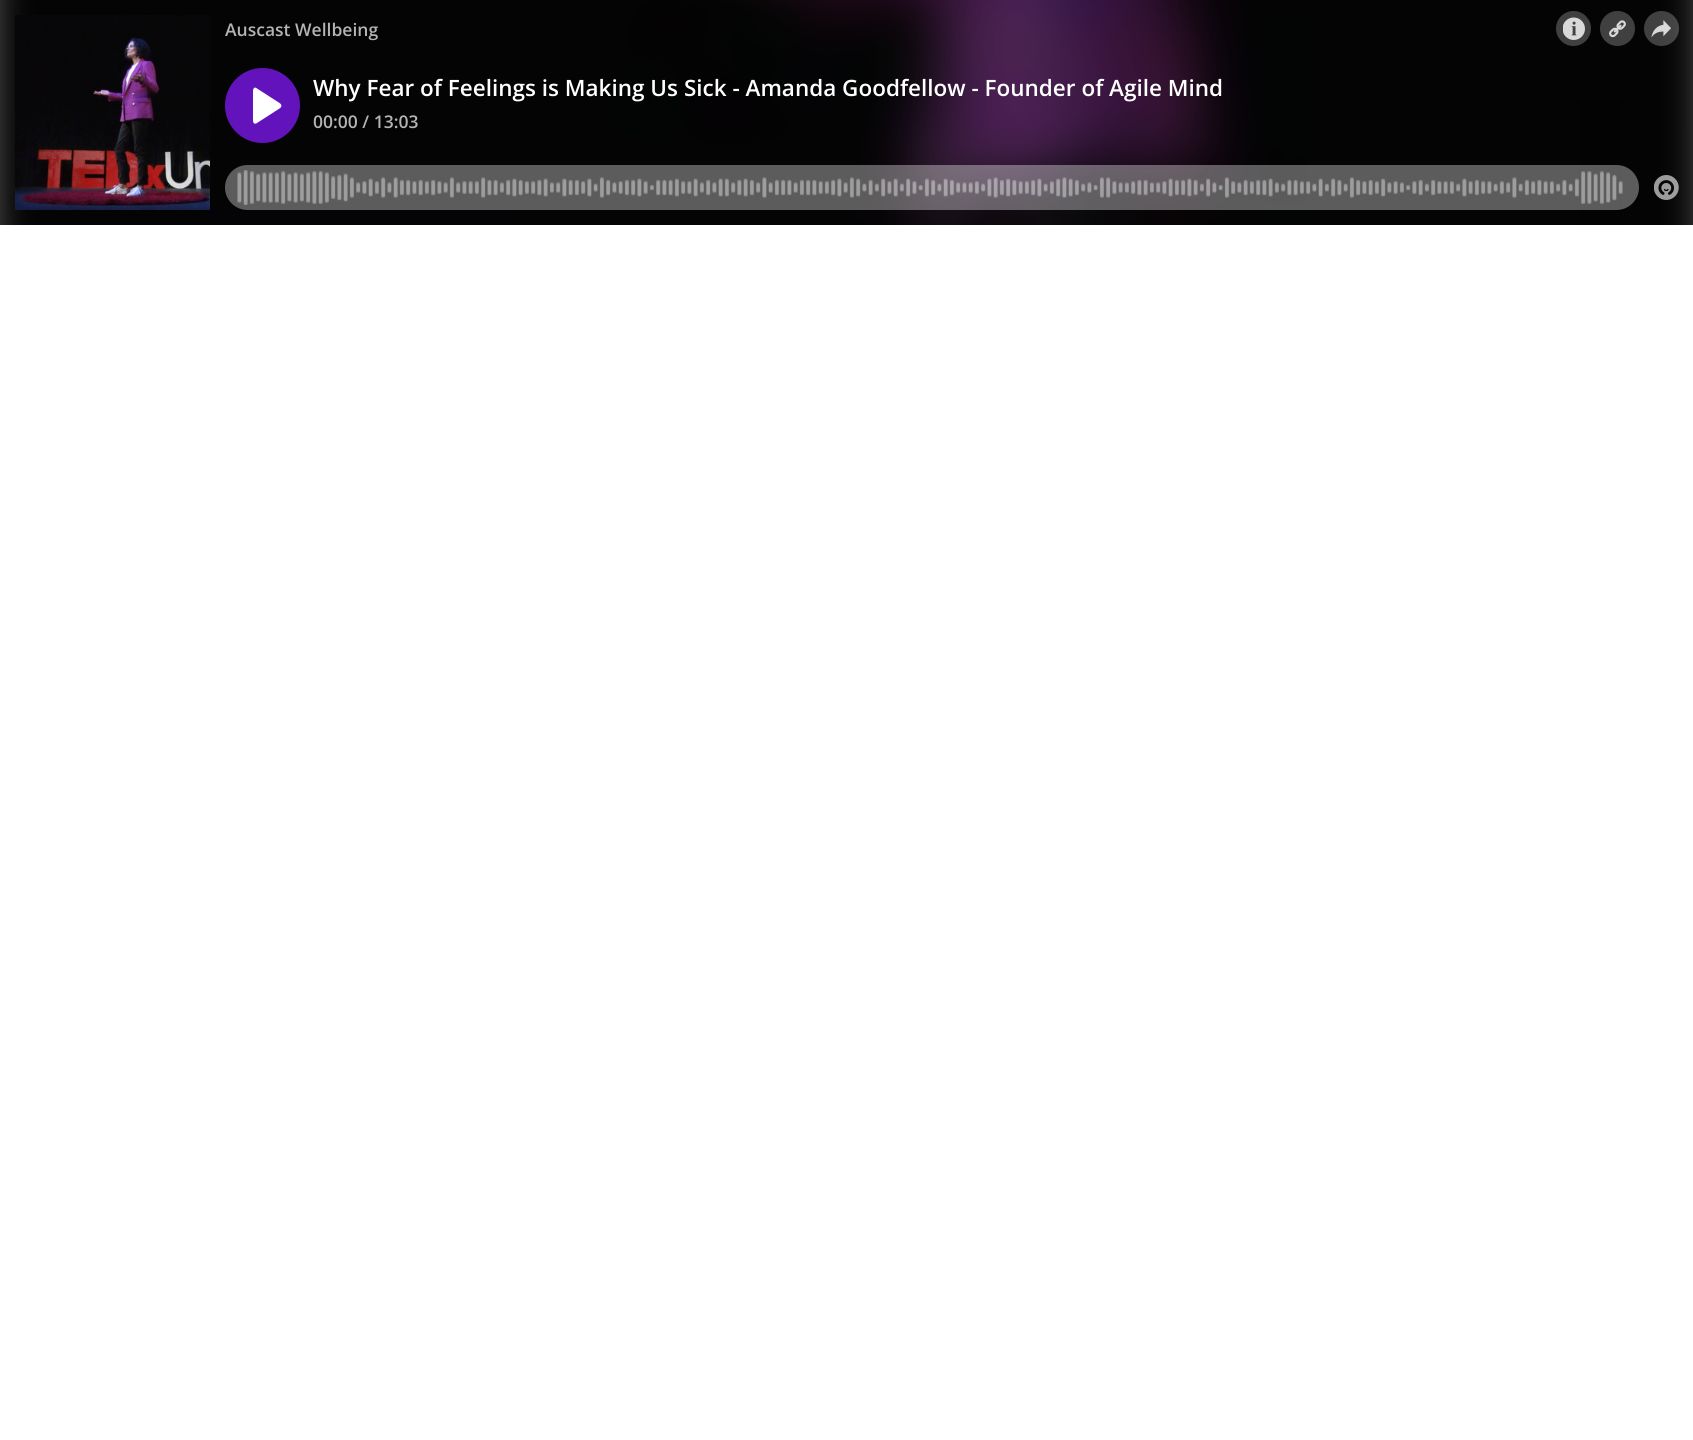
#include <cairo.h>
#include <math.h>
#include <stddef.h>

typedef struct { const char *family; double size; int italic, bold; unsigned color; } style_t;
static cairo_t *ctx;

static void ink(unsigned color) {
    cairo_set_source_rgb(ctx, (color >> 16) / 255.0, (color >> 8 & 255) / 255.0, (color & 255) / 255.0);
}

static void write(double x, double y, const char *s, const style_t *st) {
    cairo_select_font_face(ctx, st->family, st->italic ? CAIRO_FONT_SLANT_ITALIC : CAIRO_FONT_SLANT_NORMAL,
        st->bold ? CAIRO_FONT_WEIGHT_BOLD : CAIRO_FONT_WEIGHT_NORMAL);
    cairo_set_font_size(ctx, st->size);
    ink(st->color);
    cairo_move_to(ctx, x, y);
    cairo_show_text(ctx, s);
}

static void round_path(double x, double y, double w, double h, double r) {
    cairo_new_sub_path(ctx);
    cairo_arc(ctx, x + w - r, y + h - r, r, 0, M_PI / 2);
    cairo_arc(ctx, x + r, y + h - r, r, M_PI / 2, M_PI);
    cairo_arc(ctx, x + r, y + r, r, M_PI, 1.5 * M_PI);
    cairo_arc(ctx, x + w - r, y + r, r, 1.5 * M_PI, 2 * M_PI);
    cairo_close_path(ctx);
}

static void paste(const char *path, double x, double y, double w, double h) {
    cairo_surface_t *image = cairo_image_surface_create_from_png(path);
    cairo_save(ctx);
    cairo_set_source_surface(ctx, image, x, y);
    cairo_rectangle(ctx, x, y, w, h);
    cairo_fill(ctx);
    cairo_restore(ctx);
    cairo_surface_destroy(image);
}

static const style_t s1 = {"Open Sans SemiBold", 17.5, 0, 0, 0xb4b4b4};
static const style_t s2 = {"Open Sans SemiBold", 22.5, 0, 0, 0xffffff};

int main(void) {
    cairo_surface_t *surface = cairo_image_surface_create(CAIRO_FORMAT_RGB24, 1693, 1440);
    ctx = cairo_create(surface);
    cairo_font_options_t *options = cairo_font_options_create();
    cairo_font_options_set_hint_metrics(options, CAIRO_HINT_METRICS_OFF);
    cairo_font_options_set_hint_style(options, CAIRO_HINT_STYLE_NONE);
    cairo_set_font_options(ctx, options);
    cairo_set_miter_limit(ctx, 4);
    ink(0xffffff);
    cairo_paint(ctx);
    paste("pic1.png", 0, 0, 1693, 225);
    paste("pic2.png", 15, 15, 195, 195);
    write(225, 36, "Auscast Wellbeing", &s1);
    ink(0x404041);
    cairo_new_path(ctx);
    cairo_arc(ctx, 1573.5, 28.5, 17.5, 0, 2 * M_PI);
    cairo_fill(ctx);
    paste("pic3.png", 1563, 17, 22, 23);
    cairo_arc(ctx, 1617.5, 28.5, 17.5, 0, 2 * M_PI);
    cairo_fill(ctx);
    paste("pic4.png", 1609, 20, 17, 18);
    cairo_set_source_rgba(ctx, 1, 1, 1, 0.24);
    cairo_arc(ctx, 1661.5, 28.5, 17.5, 0, 2 * M_PI);
    cairo_fill(ctx);
    paste("pic5.png", 1651, 20, 20, 18);
    ink(0x6313bc);
    cairo_arc(ctx, 262.5, 105.5, 37.5, 0, 2 * M_PI);
    cairo_fill(ctx);
    ink(0xffffff);
    cairo_new_path(ctx);
    cairo_move_to(ctx, 257, 123);
    cairo_curve_to(ctx, 255, 124.5, 253, 123.5, 253, 120.5);
    cairo_line_to(ctx, 253, 91);
    cairo_curve_to(ctx, 253, 88, 255, 86.5, 257, 88.5);
    cairo_line_to(ctx, 279.5, 103);
    cairo_curve_to(ctx, 282, 104.5, 282, 107, 279.5, 108.5);
    cairo_close_path(ctx);
    cairo_fill(ctx);
    write(313, 96, "Why Fear of Feelings is Making Us Sick - Amanda Goodfellow - Founder of Agile Mind", &s2);
    write(313, 128, "00:00 / 13:03", &s1);
    cairo_set_source_rgba(ctx, 1, 1, 1, 0.35);
    round_path(225, 165, 1414, 45, 22.5);
    cairo_fill(ctx);
    paste("pic6.png", 237, 170, 1274, 35);
    paste("pic7.png", 1512, 171, 111, 33);
    paste("pic8.png", 1654, 175, 25, 25);
    cairo_surface_write_to_png(surface, "screenshot.png");
    cairo_font_options_destroy(options);
    cairo_destroy(ctx);
    cairo_surface_destroy(surface);
    return 0;
}
